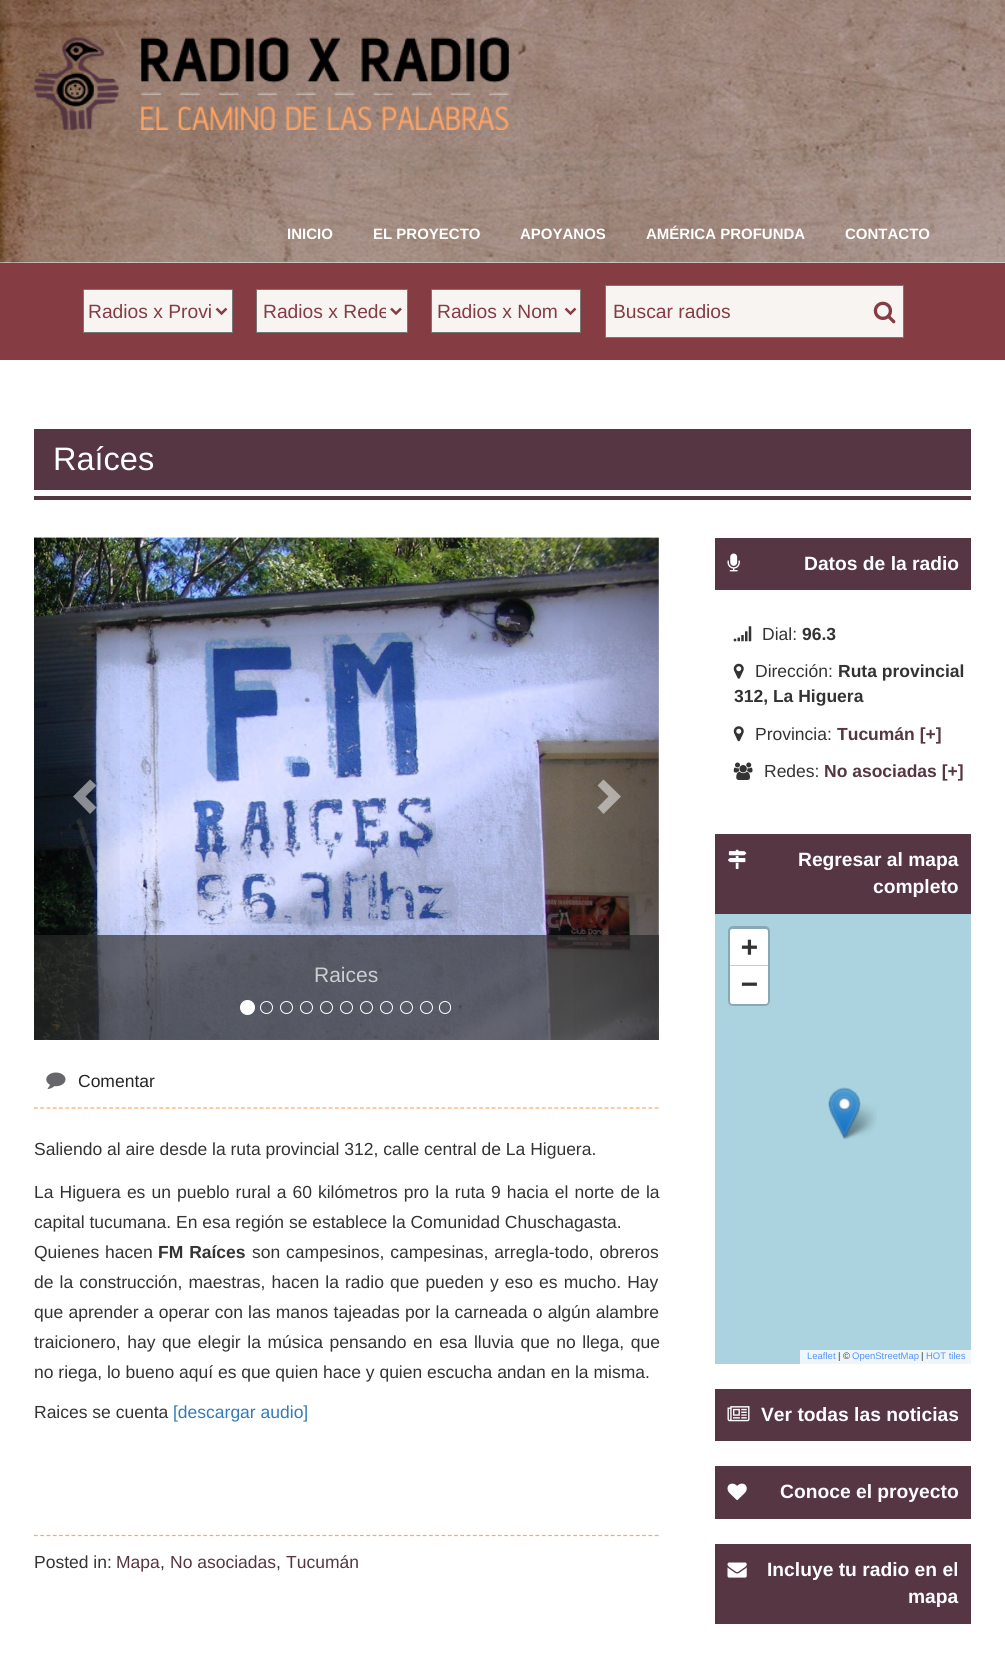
#include <cairo.h>
#include <math.h>
#include <stddef.h>

typedef struct { const char *family; double size; int italic, bold; unsigned color; } style_t;
static cairo_t *ctx;

static void ink(unsigned color) {
    cairo_set_source_rgb(ctx, (color >> 16) / 255.0, (color >> 8 & 255) / 255.0, (color & 255) / 255.0);
}

static void write(double x, double y, const char *s, const style_t *st) {
    cairo_select_font_face(ctx, st->family, st->italic ? CAIRO_FONT_SLANT_ITALIC : CAIRO_FONT_SLANT_NORMAL,
        st->bold ? CAIRO_FONT_WEIGHT_BOLD : CAIRO_FONT_WEIGHT_NORMAL);
    cairo_set_font_size(ctx, st->size);
    ink(st->color);
    cairo_move_to(ctx, x, y);
    cairo_show_text(ctx, s);
}

static void write_spaced(double x, double y, const char *s, double letter, double word) {
    cairo_move_to(ctx, x, y);
    while (*s) {
        char ch[5] = {0};
        int n = 0;
        do ch[n++] = *s++; while ((*s & 0xC0) == 0x80);
        cairo_show_text(ctx, ch);
        cairo_rel_move_to(ctx, letter + word * (*ch == ' '), 0);
    }
}

static void block(double x, double y, double w, double h, unsigned color) {
    ink(color);
    cairo_rectangle(ctx, x, y, w, h);
    cairo_fill(ctx);
}

static void round_path(double x, double y, double w, double h, double r) {
    cairo_new_sub_path(ctx);
    cairo_arc(ctx, x + w - r, y + h - r, r, 0, M_PI / 2);
    cairo_arc(ctx, x + r, y + h - r, r, M_PI / 2, M_PI);
    cairo_arc(ctx, x + r, y + r, r, M_PI, 1.5 * M_PI);
    cairo_arc(ctx, x + w - r, y + r, r, 1.5 * M_PI, 2 * M_PI);
    cairo_close_path(ctx);
}

static void paste(const char *path, double x, double y, double w, double h) {
    cairo_surface_t *image = cairo_image_surface_create_from_png(path);
    cairo_save(ctx);
    cairo_set_source_surface(ctx, image, x, y);
    cairo_rectangle(ctx, x, y, w, h);
    cairo_fill(ctx);
    cairo_restore(ctx);
    cairo_surface_destroy(image);
}

static const style_t s1 = {"Liberation Sans", 15, 0, 1, 0xffffff};
static const style_t s2 = {"Liberation Sans", 19.25, 0, 0, 0x853c43};
static const style_t s3 = {"Liberation Sans", 32.5, 0, 0, 0xffffff};
static const style_t s4 = {"Liberation Sans", 21, 0, 0, 0xcdced1};
static const style_t s5 = {"Liberation Sans", 17.5, 0, 0, 0x252525};
static const style_t s6 = {"Liberation Sans", 17.5, 0, 0, 0x333333};
static const style_t s7 = {"Liberation Sans", 17.5, 0, 0, 0x337ab7};
static const style_t s8 = {"Liberation Sans", 17.5, 0, 0, 0x563643};
static const style_t s9 = {"Liberation Sans", 19.25, 0, 1, 0xffffff};
static const style_t s10 = {"Liberation Sans", 17.5, 0, 1, 0x333333};
static const style_t s11 = {"Liberation Sans", 17.5, 0, 1, 0x563643};
static const style_t s12 = {"DejaVu Sans Mono", 28, 0, 1, 0x333333};
static const style_t s13 = {"Liberation Sans", 9.5, 0, 0, 0x5893ff};
static const style_t s14 = {"Liberation Sans", 9.5, 0, 0, 0x333333};

int main(void) {
    cairo_surface_t *surface = cairo_image_surface_create(CAIRO_FORMAT_RGB24, 1005, 1679);
    ctx = cairo_create(surface);
    cairo_font_options_t *options = cairo_font_options_create();
    cairo_font_options_set_hint_metrics(options, CAIRO_HINT_METRICS_OFF);
    cairo_font_options_set_hint_style(options, CAIRO_HINT_STYLE_NONE);
    cairo_set_font_options(ctx, options);
    cairo_set_miter_limit(ctx, 4);
    cairo_pattern_t *gradient;
    ink(0xffffff);
    cairo_paint(ctx);
    block(0, 262, 1005, 1, 0xf9f9f9);
    paste("pic1.png", 0, 0, 1005, 263);
    paste("pic2.png", 33, 37, 476, 93);
    write(287, 239, "INICIO", &s1);
    write(373, 239, "EL PROYECTO", &s1);
    write(520, 239, "APOYANOS", &s1);
    write(646, 239, "AMÉRICA PROFUNDA", &s1);
    write(845, 239, "CONTACTO", &s1);
    block(0, 263, 1005, 97, 0x853c43);
    ink(0xf8f4f2);
    cairo_rectangle(ctx, 83.5, 289.5, 149, 43);
    cairo_fill_preserve(ctx);
    ink(0x777777);
    cairo_set_line_width(ctx, 1);
    cairo_stroke(ctx);
    cairo_new_path(ctx);
    cairo_move_to(ctx, 216.5, 308.5);
    cairo_line_to(ctx, 221.5, 313.5);
    cairo_line_to(ctx, 226.5, 308.5);
    ink(0x853c43);
    cairo_set_line_width(ctx, 2.5);
    cairo_stroke(ctx);
    cairo_save(ctx);
    cairo_rectangle(ctx, 89, 299, 122, 24);
    cairo_clip(ctx);
    write(88, 318, "Radios x Provi", &s2);
    cairo_restore(ctx);
    ink(0xf8f4f2);
    cairo_rectangle(ctx, 256.5, 289.5, 151, 43);
    cairo_fill_preserve(ctx);
    ink(0x777777);
    cairo_set_line_width(ctx, 1);
    cairo_stroke(ctx);
    cairo_new_path(ctx);
    cairo_move_to(ctx, 391, 308.5);
    cairo_line_to(ctx, 396, 313.5);
    cairo_line_to(ctx, 401, 308.5);
    ink(0x853c43);
    cairo_set_line_width(ctx, 2.5);
    cairo_stroke(ctx);
    cairo_save(ctx);
    cairo_rectangle(ctx, 263, 299, 123, 24);
    cairo_clip(ctx);
    write(263, 318, "Radios x Rede", &s2);
    cairo_restore(ctx);
    ink(0xf8f4f2);
    cairo_rectangle(ctx, 431.5, 289.5, 149, 43);
    cairo_fill_preserve(ctx);
    ink(0x777777);
    cairo_set_line_width(ctx, 1);
    cairo_stroke(ctx);
    cairo_new_path(ctx);
    cairo_move_to(ctx, 565.5, 308.5);
    cairo_line_to(ctx, 570.5, 313.5);
    cairo_line_to(ctx, 575.5, 308.5);
    ink(0x853c43);
    cairo_set_line_width(ctx, 2.5);
    cairo_stroke(ctx);
    write(437, 318, "Radios x Nom", &s2);
    ink(0xf8f4f2);
    cairo_rectangle(ctx, 605.5, 285.5, 298, 52);
    cairo_fill_preserve(ctx);
    ink(0x777777);
    cairo_set_line_width(ctx, 1);
    cairo_stroke(ctx);
    write(613, 318, "Buscar radios", &s2);
    paste("pic3.png", 873, 301, 23, 23);
    block(34, 496, 937, 4, 0x563643);
    block(34, 429, 937, 61, 0x563643);
    write(53, 470, "Raíces", &s3);
    paste("pic4.png", 34, 537, 625, 503);
    cairo_set_source_rgba(ctx, 0.2, 0.2, 0.2, 0.7);
    cairo_rectangle(ctx, 34, 935, 625, 105);
    cairo_fill(ctx);
    gradient = cairo_pattern_create_linear(34, 789, 128, 789);
    cairo_pattern_add_color_stop_rgba(gradient, 0, 0, 0, 0, 0.25);
    cairo_pattern_add_color_stop_rgba(gradient, 1, 0, 0, 0, 0);
    cairo_set_source(ctx, gradient);
    cairo_pattern_destroy(gradient);
    cairo_rectangle(ctx, 34, 538, 86, 502);
    cairo_fill(ctx);
    cairo_set_source_rgba(ctx, 1, 1, 1, 0.5);
    cairo_new_path(ctx);
    cairo_move_to(ctx, 96.5, 785.5);
    cairo_line_to(ctx, 85.5, 796.5);
    cairo_line_to(ctx, 96.5, 807.5);
    cairo_line_to(ctx, 90, 814);
    cairo_line_to(ctx, 73, 796.5);
    cairo_line_to(ctx, 90, 779.5);
    cairo_close_path(ctx);
    cairo_fill(ctx);
    write(314, 982, "Raices", &s4);
    gradient = cairo_pattern_create_linear(565, 789, 659, 789);
    cairo_pattern_add_color_stop_rgba(gradient, 0, 0, 0, 0, 0);
    cairo_pattern_add_color_stop_rgba(gradient, 1, 0, 0, 0, 0.25);
    cairo_set_source(ctx, gradient);
    cairo_pattern_destroy(gradient);
    cairo_rectangle(ctx, 573, 538, 86, 502);
    cairo_fill(ctx);
    cairo_set_source_rgba(ctx, 1, 1, 1, 0.5);
    cairo_new_path(ctx);
    cairo_move_to(ctx, 621, 796.5);
    cairo_line_to(ctx, 603.5, 814);
    cairo_line_to(ctx, 597.5, 807.5);
    cairo_line_to(ctx, 608.5, 796.5);
    cairo_line_to(ctx, 597.5, 785.5);
    cairo_line_to(ctx, 603.5, 779.5);
    cairo_close_path(ctx);
    cairo_fill(ctx);
    ink(0xffffff);
    cairo_arc(ctx, 247.5, 1007.5, 7, 0, 2 * M_PI);
    cairo_fill_preserve(ctx);
    cairo_stroke(ctx);
    cairo_arc(ctx, 266.5, 1007.5, 6, 0, 2 * M_PI);
    cairo_stroke(ctx);
    cairo_arc(ctx, 286.5, 1007.5, 6, 0, 2 * M_PI);
    cairo_stroke(ctx);
    cairo_arc(ctx, 306.5, 1007.5, 6, 0, 2 * M_PI);
    cairo_stroke(ctx);
    cairo_arc(ctx, 326.5, 1007.5, 6, 0, 2 * M_PI);
    cairo_stroke(ctx);
    cairo_arc(ctx, 346.5, 1007.5, 6, 0, 2 * M_PI);
    cairo_stroke(ctx);
    cairo_arc(ctx, 366.5, 1007.5, 6, 0, 2 * M_PI);
    cairo_stroke(ctx);
    cairo_arc(ctx, 386.5, 1007.5, 6, 0, 2 * M_PI);
    cairo_stroke(ctx);
    cairo_arc(ctx, 406.5, 1007.5, 6, 0, 2 * M_PI);
    cairo_stroke(ctx);
    cairo_arc(ctx, 426.5, 1007.5, 6, 0, 2 * M_PI);
    cairo_stroke(ctx);
    round_path(439.5, 1001.5, 11, 12, 5.5);
    cairo_stroke(ctx);
    cairo_new_path(ctx);
    cairo_move_to(ctx, 34, 1108);
    cairo_line_to(ctx, 659, 1108);
    ink(0xffa566);
    cairo_set_line_width(ctx, 1.2);
    cairo_set_dash(ctx, (double[]){3.75, 2.52}, 2, 0);
    cairo_stroke(ctx);
    paste("pic5.png", 46, 1072, 20, 17);
    write(78, 1087, "Comentar", &s5);
    write(34, 1155, "Saliendo al aire desde la ruta provincial 312, calle central de La Higuera.", &s6);
    write_spaced(34, 1198, "La Higuera es un pueblo rural a 60 kilómetros pro la ruta 9 hacia el norte de la", 0, 1.2);
    write(34, 1228, "capital tucumana. En esa región se establece la Comunidad Chuschagasta.", &s6);
    write_spaced(34, 1258, "Quienes hacen", 0, 1);
    cairo_select_font_face(ctx, "Liberation Sans", CAIRO_FONT_SLANT_NORMAL, CAIRO_FONT_WEIGHT_BOLD);
    write_spaced(158, 1258, "FM Raíces", 0, 1);
    cairo_select_font_face(ctx, "Liberation Sans", CAIRO_FONT_SLANT_NORMAL, CAIRO_FONT_WEIGHT_NORMAL);
    write_spaced(252, 1258, "son campesinos, campesinas, arregla-todo, obreros", 0, 1);
    write_spaced(34, 1288, "de la construcción, maestras, hacen la radio que pueden y eso es mucho. Hay", 0, 1.25);
    write_spaced(34, 1318, "que aprender a operar con las manos tajeadas por la carneada o algún alambre", 0, 0.4);
    write_spaced(34, 1348, "traicionero, hay que elegir la música pensando en esa lluvia que no llega, que", 0, 1.75);
    write(34, 1378, "no riega, lo bueno aquí es que quien hace y quien escucha andan en la misma.", &s6);
    write(34, 1418, "Raices se cuenta", &s6);
    write(173, 1418, "[descargar audio]", &s7);
    cairo_new_path(ctx);
    cairo_move_to(ctx, 34, 1535.5);
    cairo_line_to(ctx, 659, 1535.5);
    ink(0xffa566);
    cairo_stroke(ctx);
    write(34, 1568, "Posted in:", &s6);
    write(116, 1568, "Mapa", &s8);
    write(160, 1568, ",", &s6);
    write(170, 1568, "No asociadas", &s8);
    write(276, 1568, ",", &s6);
    write(286, 1568, "Tucumán", &s8);
    block(715, 538, 256, 52, 0x563643);
    paste("pic6.png", 727, 553, 13, 19);
    write(804, 570, "Datos de la radio", &s9);
    paste("pic7.png", 733, 626, 19, 16);
    write(762, 640, "Dial:", &s6);
    write(802, 640, "96.3", &s10);
    paste("pic8.png", 733, 663, 11, 16);
    write(755, 677, "Dirección:", &s6);
    write(838, 677, "Ruta provincial", &s10);
    write(734, 702, "312, La Higuera", &s10);
    paste("pic9.png", 733, 726, 11, 16);
    write(755, 740, "Provincia:", &s6);
    write(837, 740, "Tucumán [+]", &s11);
    paste("pic10.png", 733, 762, 20, 18);
    write(764, 777, "Redes:", &s6);
    write(824, 777, "No asociadas [+]", &s11);
    block(715, 834, 256, 80, 0x563643);
    paste("pic11.png", 728, 849, 19, 20);
    write(798, 866, "Regresar al mapa", &s9);
    write(873, 893, "completo", &s9);
    block(715, 914, 256, 450, 0xaad3df);
    round_path(729.5, 927.5, 39, 77, 3.5);
    ink(0x88a9b2);
    cairo_set_line_width(ctx, 3);
    cairo_set_dash(ctx, NULL, 0, 0);
    cairo_stroke(ctx);
    ink(0xffffff);
    cairo_new_path(ctx);
    cairo_move_to(ctx, 732.5, 929);
    cairo_line_to(ctx, 765.5, 929);
    cairo_curve_to(ctx, 767, 929, 768, 930, 768, 931.5);
    cairo_line_to(ctx, 768, 966);
    cairo_line_to(ctx, 730, 966);
    cairo_line_to(ctx, 730, 931.5);
    cairo_curve_to(ctx, 730, 930, 731, 929, 732.5, 929);
    cairo_close_path(ctx);
    cairo_fill(ctx);
    block(730, 965, 38, 1, 0xcccccc);
    write(741, 956, "+", &s12);
    ink(0xffffff);
    cairo_new_path(ctx);
    cairo_move_to(ctx, 730, 966);
    cairo_line_to(ctx, 768, 966);
    cairo_line_to(ctx, 768, 1001.5);
    cairo_curve_to(ctx, 768, 1003, 767, 1004, 765.5, 1004);
    cairo_line_to(ctx, 732.5, 1004);
    cairo_curve_to(ctx, 731, 1004, 730, 1003, 730, 1001.5);
    cairo_close_path(ctx);
    cairo_fill(ctx);
    write(741, 993, "−", &s12);
    block(800, 1350, 171, 14, 0xeef6f9);
    write(807, 1359, "Leaflet", &s13);
    write(838, 1359, "| ©", &s14);
    write(852, 1359, "OpenStreetMap", &s13);
    write(921, 1359, "|", &s14);
    write(926, 1359, "HOT tiles", &s13);
    paste("pic13.png", 840, 1103, 37, 36);
    paste("pic12.png", 828, 1087, 33, 53);
    block(715, 1389, 256, 52, 0x563643);
    paste("pic14.png", 727, 1406, 23, 16);
    write(761, 1421, "Ver todas las noticias", &s9);
    block(715, 1466, 256, 53, 0x563643);
    paste("pic15.png", 727, 1483, 20, 18);
    write(780, 1498, "Conoce el proyecto", &s9);
    block(715, 1544, 256, 80, 0x563643);
    paste("pic16.png", 727, 1562, 20, 16);
    write(767, 1576, "Incluye tu radio en el", &s9);
    write(908, 1603, "mapa", &s9);
    cairo_surface_write_to_png(surface, "screenshot.png");
    cairo_font_options_destroy(options);
    cairo_destroy(ctx);
    cairo_surface_destroy(surface);
    return 0;
}
